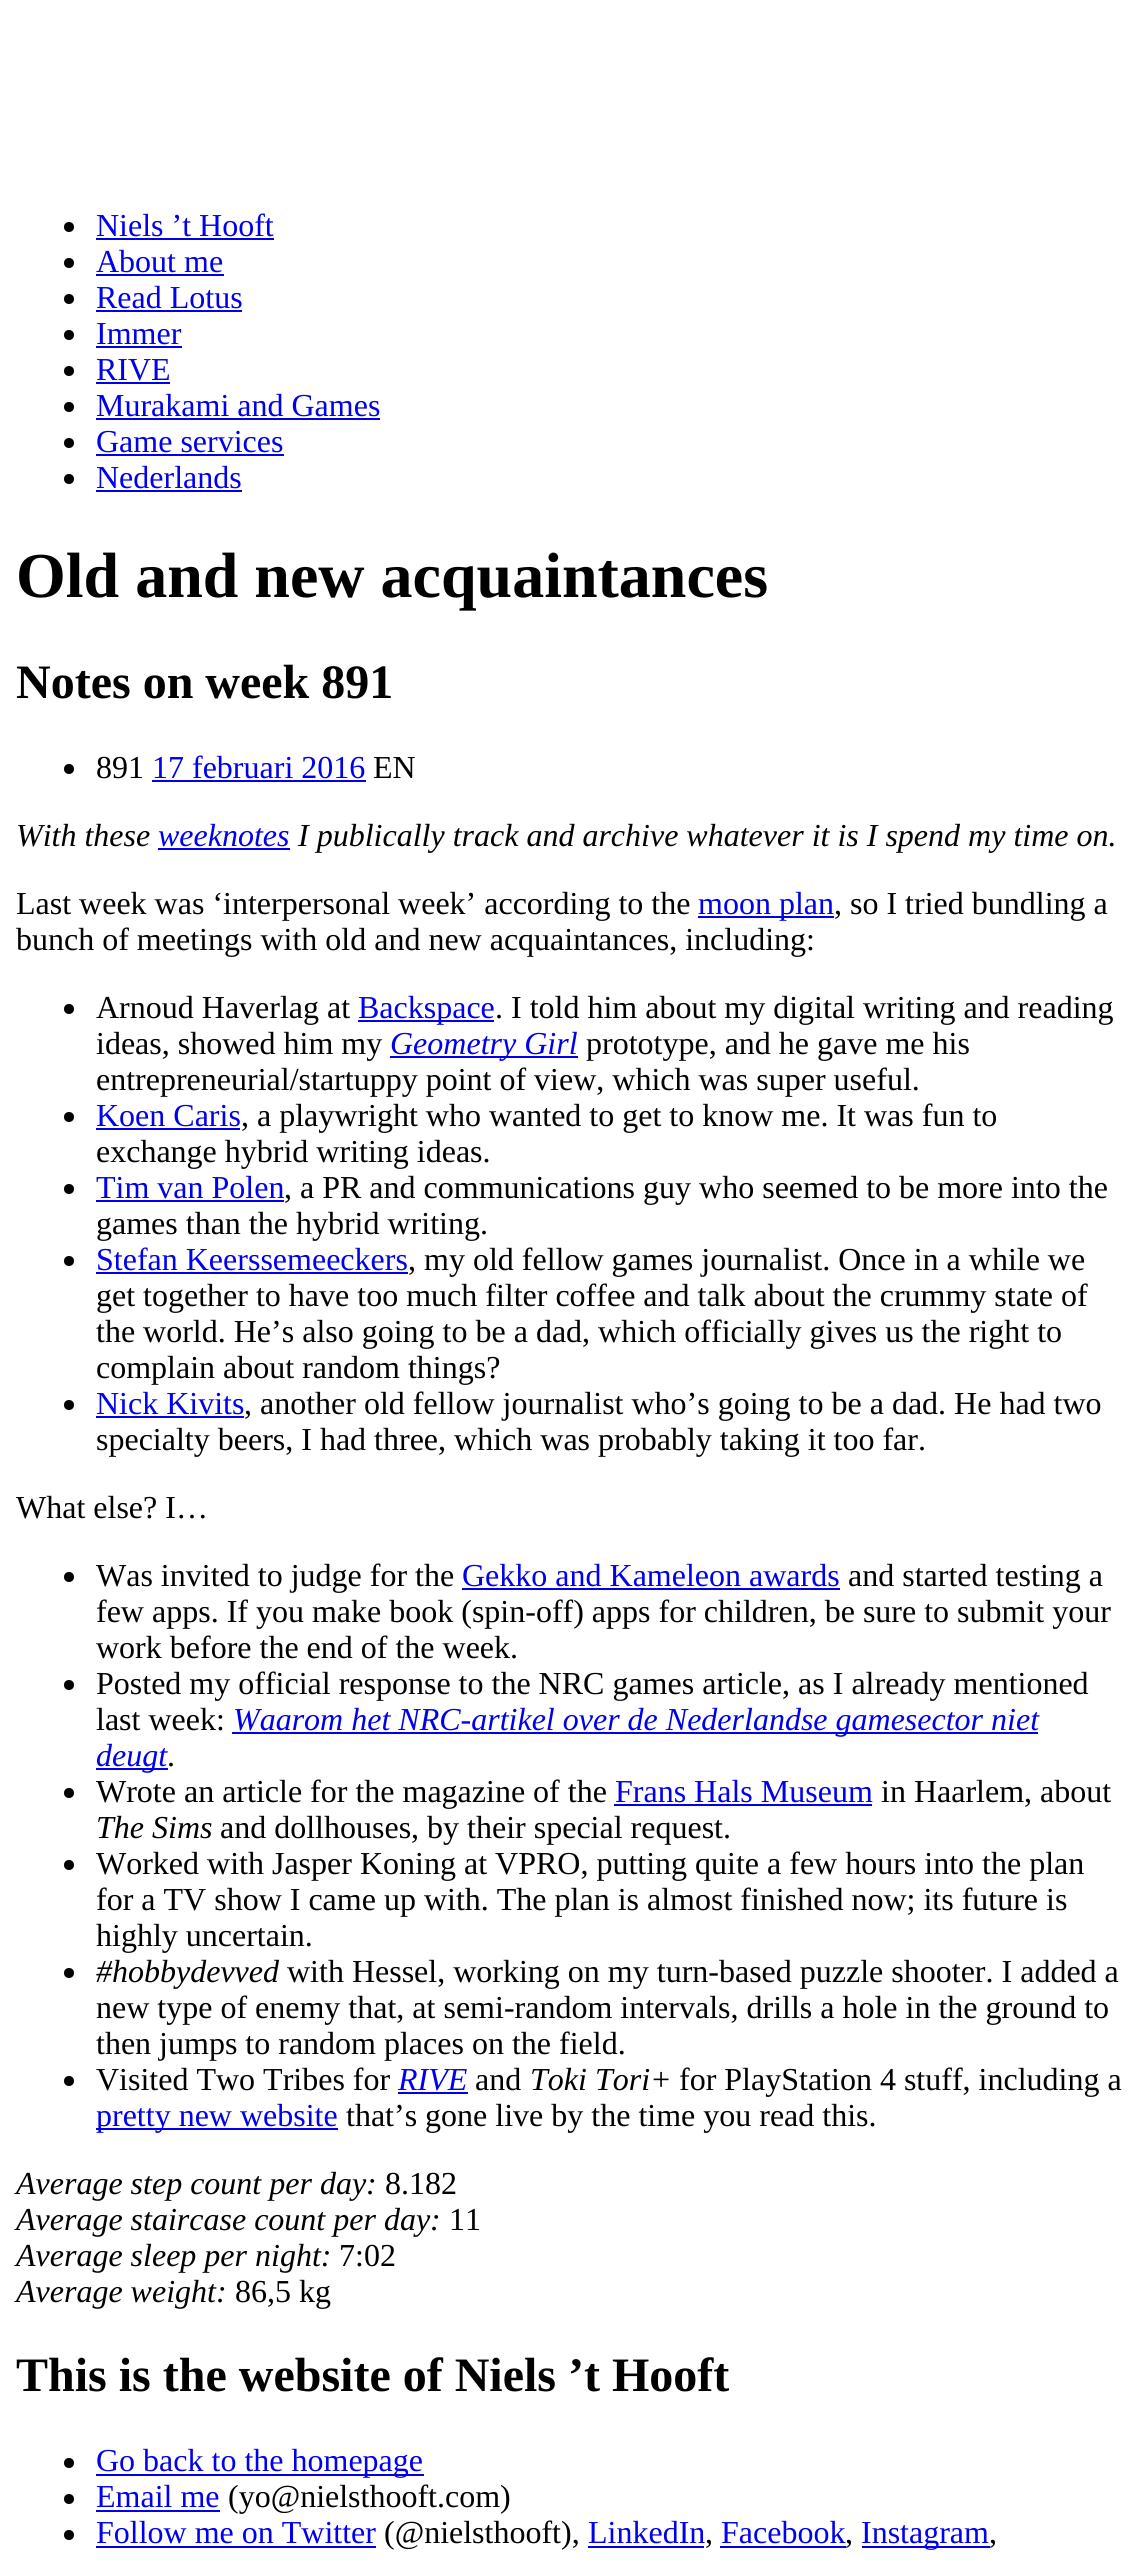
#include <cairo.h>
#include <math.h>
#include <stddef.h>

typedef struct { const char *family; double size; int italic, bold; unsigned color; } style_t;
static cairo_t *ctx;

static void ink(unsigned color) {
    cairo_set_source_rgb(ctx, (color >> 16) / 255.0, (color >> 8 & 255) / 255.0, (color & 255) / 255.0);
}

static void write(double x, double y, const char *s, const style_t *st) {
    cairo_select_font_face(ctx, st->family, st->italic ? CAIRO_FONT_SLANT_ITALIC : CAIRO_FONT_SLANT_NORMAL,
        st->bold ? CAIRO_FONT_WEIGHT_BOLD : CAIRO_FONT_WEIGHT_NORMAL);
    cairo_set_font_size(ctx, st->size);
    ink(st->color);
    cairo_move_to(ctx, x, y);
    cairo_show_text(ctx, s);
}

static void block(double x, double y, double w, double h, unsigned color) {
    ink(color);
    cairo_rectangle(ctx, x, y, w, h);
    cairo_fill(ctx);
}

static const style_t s1 = {"Liberation Serif", 32, 0, 0, 0x0000ee};
static const style_t s2 = {"Liberation Serif", 64, 0, 1, 0x000000};
static const style_t s3 = {"Liberation Serif", 48, 0, 1, 0x000000};
static const style_t s4 = {"Liberation Serif", 32, 0, 0, 0x000000};
static const style_t s5 = {"Liberation Serif", 32, 1, 0, 0x000000};
static const style_t s6 = {"Liberation Serif", 32, 1, 0, 0x0000ee};

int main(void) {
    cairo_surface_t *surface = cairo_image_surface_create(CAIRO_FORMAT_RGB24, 1138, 2569);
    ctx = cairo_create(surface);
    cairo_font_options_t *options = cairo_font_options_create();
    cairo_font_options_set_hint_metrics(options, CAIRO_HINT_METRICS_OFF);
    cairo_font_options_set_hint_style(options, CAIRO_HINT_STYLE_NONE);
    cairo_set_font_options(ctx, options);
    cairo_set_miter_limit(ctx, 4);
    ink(0xffffff);
    cairo_paint(ctx);
    ink(0x000000);
    cairo_arc(ctx, 69, 227, 5, 0, 2 * M_PI);
    cairo_fill(ctx);
    write(96, 236, "Niels ’t Hooft", &s1);
    block(96, 238, 178, 2, 0x0000ee);
    ink(0x000000);
    cairo_new_path(ctx);
    cairo_arc(ctx, 69, 263, 5, 0, 2 * M_PI);
    cairo_fill(ctx);
    write(96, 272, "About me", &s1);
    block(96, 274, 128, 2, 0x0000ee);
    ink(0x000000);
    cairo_new_path(ctx);
    cairo_arc(ctx, 69, 299, 5, 0, 2 * M_PI);
    cairo_fill(ctx);
    write(96, 308, "Read Lotus", &s1);
    block(96, 310, 146, 2, 0x0000ee);
    ink(0x000000);
    cairo_new_path(ctx);
    cairo_arc(ctx, 69, 335, 5, 0, 2 * M_PI);
    cairo_fill(ctx);
    write(96, 344, "Immer", &s1);
    block(96, 346, 86, 2, 0x0000ee);
    ink(0x000000);
    cairo_new_path(ctx);
    cairo_arc(ctx, 69, 371, 5, 0, 2 * M_PI);
    cairo_fill(ctx);
    write(96, 380, "RIVE", &s1);
    block(96, 382, 74, 2, 0x0000ee);
    ink(0x000000);
    cairo_new_path(ctx);
    cairo_arc(ctx, 69, 407, 5, 0, 2 * M_PI);
    cairo_fill(ctx);
    write(96, 416, "Murakami and Games", &s1);
    block(96, 418, 284, 2, 0x0000ee);
    ink(0x000000);
    cairo_new_path(ctx);
    cairo_arc(ctx, 69, 443, 5, 0, 2 * M_PI);
    cairo_fill(ctx);
    write(96, 452, "Game services", &s1);
    block(96, 454, 188, 2, 0x0000ee);
    ink(0x000000);
    cairo_new_path(ctx);
    cairo_arc(ctx, 69, 479, 5, 0, 2 * M_PI);
    cairo_fill(ctx);
    write(96, 488, "Nederlands", &s1);
    block(96, 490, 146, 2, 0x0000ee);
    write(16, 597, "Old and new acquaintances", &s2);
    write(16, 698, "Notes on week 891", &s3);
    cairo_new_path(ctx);
    cairo_arc(ctx, 69, 769, 5, 0, 2 * M_PI);
    cairo_fill(ctx);
    write(96, 778, "891", &s4);
    write(152, 778, "17 februari 2016", &s1);
    block(152, 780, 214, 2, 0x0000ee);
    write(373, 778, "EN", &s4);
    write(16, 846, "With these", &s5);
    write(158, 846, "weeknotes", &s6);
    block(158, 848, 132, 2, 0x0000ee);
    write(298, 846, "I publically track and archive whatever it is I spend my time on.", &s5);
    write(16, 914, "Last week was ‘interpersonal week’ according to the", &s4);
    block(698, 916, 136, 2, 0x0000ee);
    write(698, 914, "moon plan", &s1);
    write(834, 914, ", so I tried bundling a", &s4);
    write(16, 950, "bunch of meetings with old and new acquaintances, including:", &s4);
    cairo_new_path(ctx);
    cairo_arc(ctx, 69, 1009, 5, 0, 2 * M_PI);
    cairo_fill(ctx);
    write(96, 1018, "Arnoud Haverlag at", &s4);
    block(358, 1020, 136, 2, 0x0000ee);
    write(358, 1018, "Backspace", &s1);
    write(495, 1018, ". I told him about my digital writing and reading", &s4);
    write(96, 1054, "ideas, showed him my", &s4);
    block(390, 1056, 188, 2, 0x0000ee);
    write(390, 1054, "Geometry Girl", &s6);
    write(586, 1054, "prototype, and he gave me his", &s4);
    write(96, 1090, "entrepreneurial/startuppy point of view, which was super useful.", &s4);
    cairo_new_path(ctx);
    cairo_arc(ctx, 69, 1117, 5, 0, 2 * M_PI);
    cairo_fill(ctx);
    write(96, 1126, "Koen Caris", &s1);
    block(96, 1128, 144, 2, 0x0000ee);
    write(241, 1126, ", a playwright who wanted to get to know me. It was fun to", &s4);
    write(96, 1162, "exchange hybrid writing ideas.", &s4);
    cairo_new_path(ctx);
    cairo_arc(ctx, 69, 1189, 5, 0, 2 * M_PI);
    cairo_fill(ctx);
    write(96, 1198, "Tim van Polen", &s1);
    block(96, 1200, 188, 2, 0x0000ee);
    write(284, 1198, ", a PR and communications guy who seemed to be more into the", &s4);
    write(96, 1234, "games than the hybrid writing.", &s4);
    cairo_new_path(ctx);
    cairo_arc(ctx, 69, 1261, 5, 0, 2 * M_PI);
    cairo_fill(ctx);
    write(96, 1270, "Stefan Keerssemeeckers", &s1);
    block(96, 1272, 312, 2, 0x0000ee);
    write(408, 1270, ", my old fellow games journalist. Once in a while we", &s4);
    write(96, 1306, "get together to have too much filter coffee and talk about the crummy state of", &s4);
    write(96, 1342, "the world. He’s also going to be a dad, which officially gives us the right to", &s4);
    write(96, 1378, "complain about random things?", &s4);
    cairo_new_path(ctx);
    cairo_arc(ctx, 69, 1405, 5, 0, 2 * M_PI);
    cairo_fill(ctx);
    write(96, 1414, "Nick Kivits", &s1);
    block(96, 1416, 148, 2, 0x0000ee);
    write(244, 1414, ", another old fellow journalist who’s going to be a dad. He had two", &s4);
    write(96, 1450, "specialty beers, I had three, which was probably taking it too far.", &s4);
    write(16, 1518, "What else? I…", &s4);
    cairo_new_path(ctx);
    cairo_arc(ctx, 69, 1577, 5, 0, 2 * M_PI);
    cairo_fill(ctx);
    write(96, 1586, "Was invited to judge for the", &s4);
    write(462, 1586, "Gekko and Kameleon awards", &s1);
    block(462, 1588, 378, 2, 0x0000ee);
    write(848, 1586, "and started testing a", &s4);
    write(96, 1622, "few apps. If you make book (spin-off) apps for children, be sure to submit your", &s4);
    write(96, 1658, "work before the end of the week.", &s4);
    cairo_new_path(ctx);
    cairo_arc(ctx, 69, 1685, 5, 0, 2 * M_PI);
    cairo_fill(ctx);
    write(96, 1694, "Posted my official response to the NRC games article, as I already mentioned", &s4);
    write(96, 1730, "last week:", &s4);
    block(232, 1732, 806, 2, 0x0000ee);
    write(233, 1730, "Waarom het NRC-artikel over de Nederlandse gamesector niet", &s6);
    block(96, 1768, 72, 2, 0x0000ee);
    write(96, 1766, "deugt", &s6);
    write(167, 1766, ".", &s4);
    cairo_new_path(ctx);
    cairo_arc(ctx, 69, 1793, 5, 0, 2 * M_PI);
    cairo_fill(ctx);
    write(96, 1802, "Wrote an article for the magazine of the", &s4);
    write(615, 1802, "Frans Hals Museum", &s1);
    block(614, 1804, 258, 2, 0x0000ee);
    write(881, 1802, "in Haarlem, about", &s4);
    write(96, 1838, "The Sims", &s5);
    write(220, 1838, "and dollhouses, by their special request.", &s4);
    cairo_new_path(ctx);
    cairo_arc(ctx, 69, 1865, 5, 0, 2 * M_PI);
    cairo_fill(ctx);
    write(96, 1874, "Worked with Jasper Koning at VPRO, putting quite a few hours into the plan", &s4);
    write(96, 1910, "for a TV show I came up with. The plan is almost finished now; its future is", &s4);
    write(96, 1946, "highly uncertain.", &s4);
    cairo_new_path(ctx);
    cairo_arc(ctx, 69, 1973, 5, 0, 2 * M_PI);
    cairo_fill(ctx);
    write(96, 1982, "#hobbydevved", &s5);
    write(287, 1982, "with Hessel, working on my turn-based puzzle shooter. I added a", &s4);
    write(96, 2018, "new type of enemy that, at semi-random intervals, drills a hole in the ground to", &s4);
    write(96, 2054, "then jumps to random places on the field.", &s4);
    cairo_new_path(ctx);
    cairo_arc(ctx, 69, 2081, 5, 0, 2 * M_PI);
    cairo_fill(ctx);
    write(96, 2090, "Visited Two Tribes for", &s4);
    write(398, 2090, "RIVE", &s6);
    block(398, 2092, 70, 2, 0x0000ee);
    write(475, 2090, "and", &s4);
    write(530, 2090, "Toki Tori+", &s5);
    write(679, 2090, "for PlayStation 4 stuff, including a", &s4);
    block(96, 2128, 242, 2, 0x0000ee);
    write(96, 2126, "pretty new website", &s1);
    write(346, 2126, "that’s gone live by the time you read this.", &s4);
    write(16, 2194, "Average step count per day:", &s5);
    write(385, 2194, "8.182", &s4);
    write(16, 2230, "Average staircase count per day:", &s5);
    write(449, 2230, "11", &s4);
    write(16, 2266, "Average sleep per night:", &s5);
    write(339, 2266, "7:02", &s4);
    write(16, 2302, "Average weight:", &s5);
    write(235, 2302, "86,5 kg", &s4);
    write(16, 2391, "This is the website of Niels ’t Hooft", &s3);
    cairo_new_path(ctx);
    cairo_arc(ctx, 69, 2463, 5, 0, 2 * M_PI);
    cairo_fill(ctx);
    block(96, 2474, 328, 2, 0x0000ee);
    write(96, 2471, "Go back to the homepage", &s1);
    ink(0x000000);
    cairo_new_path(ctx);
    cairo_arc(ctx, 69, 2499, 5, 0, 2 * M_PI);
    cairo_fill(ctx);
    write(96, 2507, "Email me", &s1);
    block(96, 2510, 124, 2, 0x0000ee);
    write(228, 2507, "(yo@nielsthooft.com)", &s4);
    cairo_new_path(ctx);
    cairo_arc(ctx, 69, 2535, 5, 0, 2 * M_PI);
    cairo_fill(ctx);
    write(96, 2543, "Follow me on Twitter", &s1);
    block(96, 2546, 280, 2, 0x0000ee);
    write(384, 2543, "(@nielsthooft),", &s4);
    write(588, 2543, "LinkedIn", &s1);
    block(588, 2546, 116, 2, 0x0000ee);
    write(721, 2543, "Facebook", &s1);
    block(720, 2546, 126, 2, 0x0000ee);
    block(862, 2546, 128, 2, 0x0000ee);
    write(861, 2543, "Instagram", &s1);
    write(705, 2543, ",", &s4);
    write(845, 2543, ",", &s4);
    write(989, 2543, ",", &s4);
    cairo_surface_write_to_png(surface, "screenshot.png");
    cairo_font_options_destroy(options);
    cairo_destroy(ctx);
    cairo_surface_destroy(surface);
    return 0;
}
